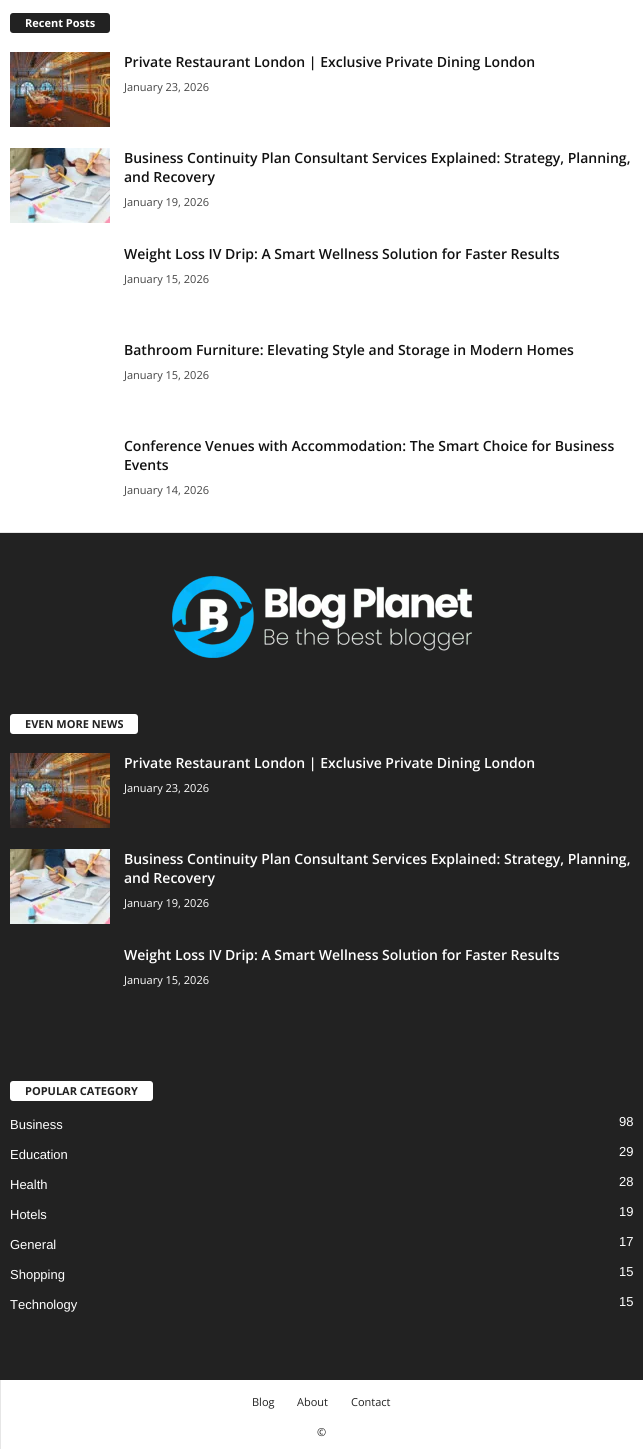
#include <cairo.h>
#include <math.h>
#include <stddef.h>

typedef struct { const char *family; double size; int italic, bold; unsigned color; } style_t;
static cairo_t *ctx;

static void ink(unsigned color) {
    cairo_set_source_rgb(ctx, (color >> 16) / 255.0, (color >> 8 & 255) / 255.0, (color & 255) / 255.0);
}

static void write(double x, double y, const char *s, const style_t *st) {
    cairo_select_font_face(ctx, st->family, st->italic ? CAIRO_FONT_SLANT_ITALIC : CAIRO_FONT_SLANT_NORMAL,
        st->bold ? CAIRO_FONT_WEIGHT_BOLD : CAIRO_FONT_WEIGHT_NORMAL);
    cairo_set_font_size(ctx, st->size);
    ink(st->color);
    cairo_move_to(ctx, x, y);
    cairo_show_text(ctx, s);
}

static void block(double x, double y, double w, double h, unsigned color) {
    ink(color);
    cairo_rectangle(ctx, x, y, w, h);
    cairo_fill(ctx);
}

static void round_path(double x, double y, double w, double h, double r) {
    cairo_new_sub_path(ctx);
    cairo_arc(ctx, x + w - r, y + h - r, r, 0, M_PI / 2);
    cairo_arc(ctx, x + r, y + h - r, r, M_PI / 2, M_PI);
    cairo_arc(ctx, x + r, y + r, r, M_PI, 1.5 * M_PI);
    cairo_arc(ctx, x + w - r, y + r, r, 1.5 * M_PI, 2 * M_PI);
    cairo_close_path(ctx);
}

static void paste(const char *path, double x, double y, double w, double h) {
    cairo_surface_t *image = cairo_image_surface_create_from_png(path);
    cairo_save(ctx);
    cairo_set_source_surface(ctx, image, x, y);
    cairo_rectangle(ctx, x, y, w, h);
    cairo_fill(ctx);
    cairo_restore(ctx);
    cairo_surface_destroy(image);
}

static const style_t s1 = {"Open Sans", 11, 0, 1, 0xffffff};
static const style_t s2 = {"Open Sans SemiBold", 14, 0, 0, 0x111111};
static const style_t s3 = {"Open Sans", 11, 0, 0, 0x444444};
static const style_t s4 = {"Open Sans", 11, 0, 1, 0x222222};
static const style_t s5 = {"Open Sans SemiBold", 14, 0, 0, 0xffffff};
static const style_t s6 = {"Open Sans", 11, 0, 0, 0xffffff};
static const style_t s7 = {"Liberation Sans", 13, 0, 0, 0xffffff};
static const style_t s8 = {"Open Sans", 11, 0, 0, 0x222222};

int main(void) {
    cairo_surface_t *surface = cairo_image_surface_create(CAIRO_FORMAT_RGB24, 643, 1449);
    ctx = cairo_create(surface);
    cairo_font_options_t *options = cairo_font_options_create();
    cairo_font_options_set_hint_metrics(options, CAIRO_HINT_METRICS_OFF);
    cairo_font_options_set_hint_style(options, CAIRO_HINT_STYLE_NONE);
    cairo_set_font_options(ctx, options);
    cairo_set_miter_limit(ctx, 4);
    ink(0xffffff);
    cairo_paint(ctx);
    block(0, 532, 643, 1, 0xe6e6e6);
    ink(0x222222);
    round_path(10, 13, 100, 20, 3);
    cairo_fill(ctx);
    write(25, 27, "Recent Posts", &s1);
    paste("pic1.png", 10, 52, 100, 75);
    write(124, 67, "Private Restaurant London | Exclusive Private Dining London", &s2);
    write(124, 91, "January 23, 2026", &s3);
    paste("pic2.png", 10, 148, 100, 75);
    write(124, 163, "Business Continuity Plan Consultant Services Explained: Strategy, Planning,", &s2);
    write(124, 182, "and Recovery", &s2);
    write(124, 206, "January 19, 2026", &s3);
    write(124, 259, "Weight Loss IV Drip: A Smart Wellness Solution for Faster Results", &s2);
    write(124, 283, "January 15, 2026", &s3);
    write(124, 355, "Bathroom Furniture: Elevating Style and Storage in Modern Homes", &s2);
    write(124, 379, "January 15, 2026", &s3);
    write(124, 451, "Conference Venues with Accommodation: The Smart Choice for Business", &s2);
    write(124, 470, "Events", &s2);
    write(124, 494, "January 14, 2026", &s3);
    block(0, 533, 643, 847, 0x222222);
    paste("pic3.png", 172, 576, 300, 82);
    ink(0xffffff);
    round_path(10, 714, 128, 20, 3);
    cairo_fill(ctx);
    write(25, 728, "EVEN MORE NEWS", &s4);
    paste("pic1.png", 10, 753, 100, 75);
    write(124, 768, "Private Restaurant London | Exclusive Private Dining London", &s5);
    write(124, 792, "January 23, 2026", &s6);
    paste("pic2.png", 10, 849, 100, 75);
    write(124, 864, "Business Continuity Plan Consultant Services Explained: Strategy, Planning,", &s5);
    write(124, 883, "and Recovery", &s5);
    write(124, 907, "January 19, 2026", &s6);
    write(124, 960, "Weight Loss IV Drip: A Smart Wellness Solution for Faster Results", &s5);
    write(124, 984, "January 15, 2026", &s6);
    round_path(10, 1081, 143, 20, 3);
    cairo_fill(ctx);
    write(25, 1095, "POPULAR CATEGORY", &s4);
    write(10, 1129, "Business", &s7);
    write(619, 1126, "98", &s7);
    write(10, 1159, "Education", &s7);
    write(619, 1156, "29", &s7);
    write(10, 1189, "Health", &s7);
    write(619, 1186, "28", &s7);
    write(10, 1219, "Hotels", &s7);
    write(619, 1216, "19", &s7);
    write(10, 1249, "General", &s7);
    write(619, 1246, "17", &s7);
    write(10, 1279, "Shopping", &s7);
    write(619, 1276, "15", &s7);
    write(10, 1309, "Technology", &s7);
    write(619, 1306, "15", &s7);
    block(0, 1380, 1, 69, 0xe6e6e6);
    write(252, 1406, "Blog", &s8);
    write(297, 1406, "About", &s8);
    write(351, 1406, "Contact", &s8);
    write(317, 1436, "©", &s8);
    cairo_surface_write_to_png(surface, "screenshot.png");
    cairo_font_options_destroy(options);
    cairo_destroy(ctx);
    cairo_surface_destroy(surface);
    return 0;
}
